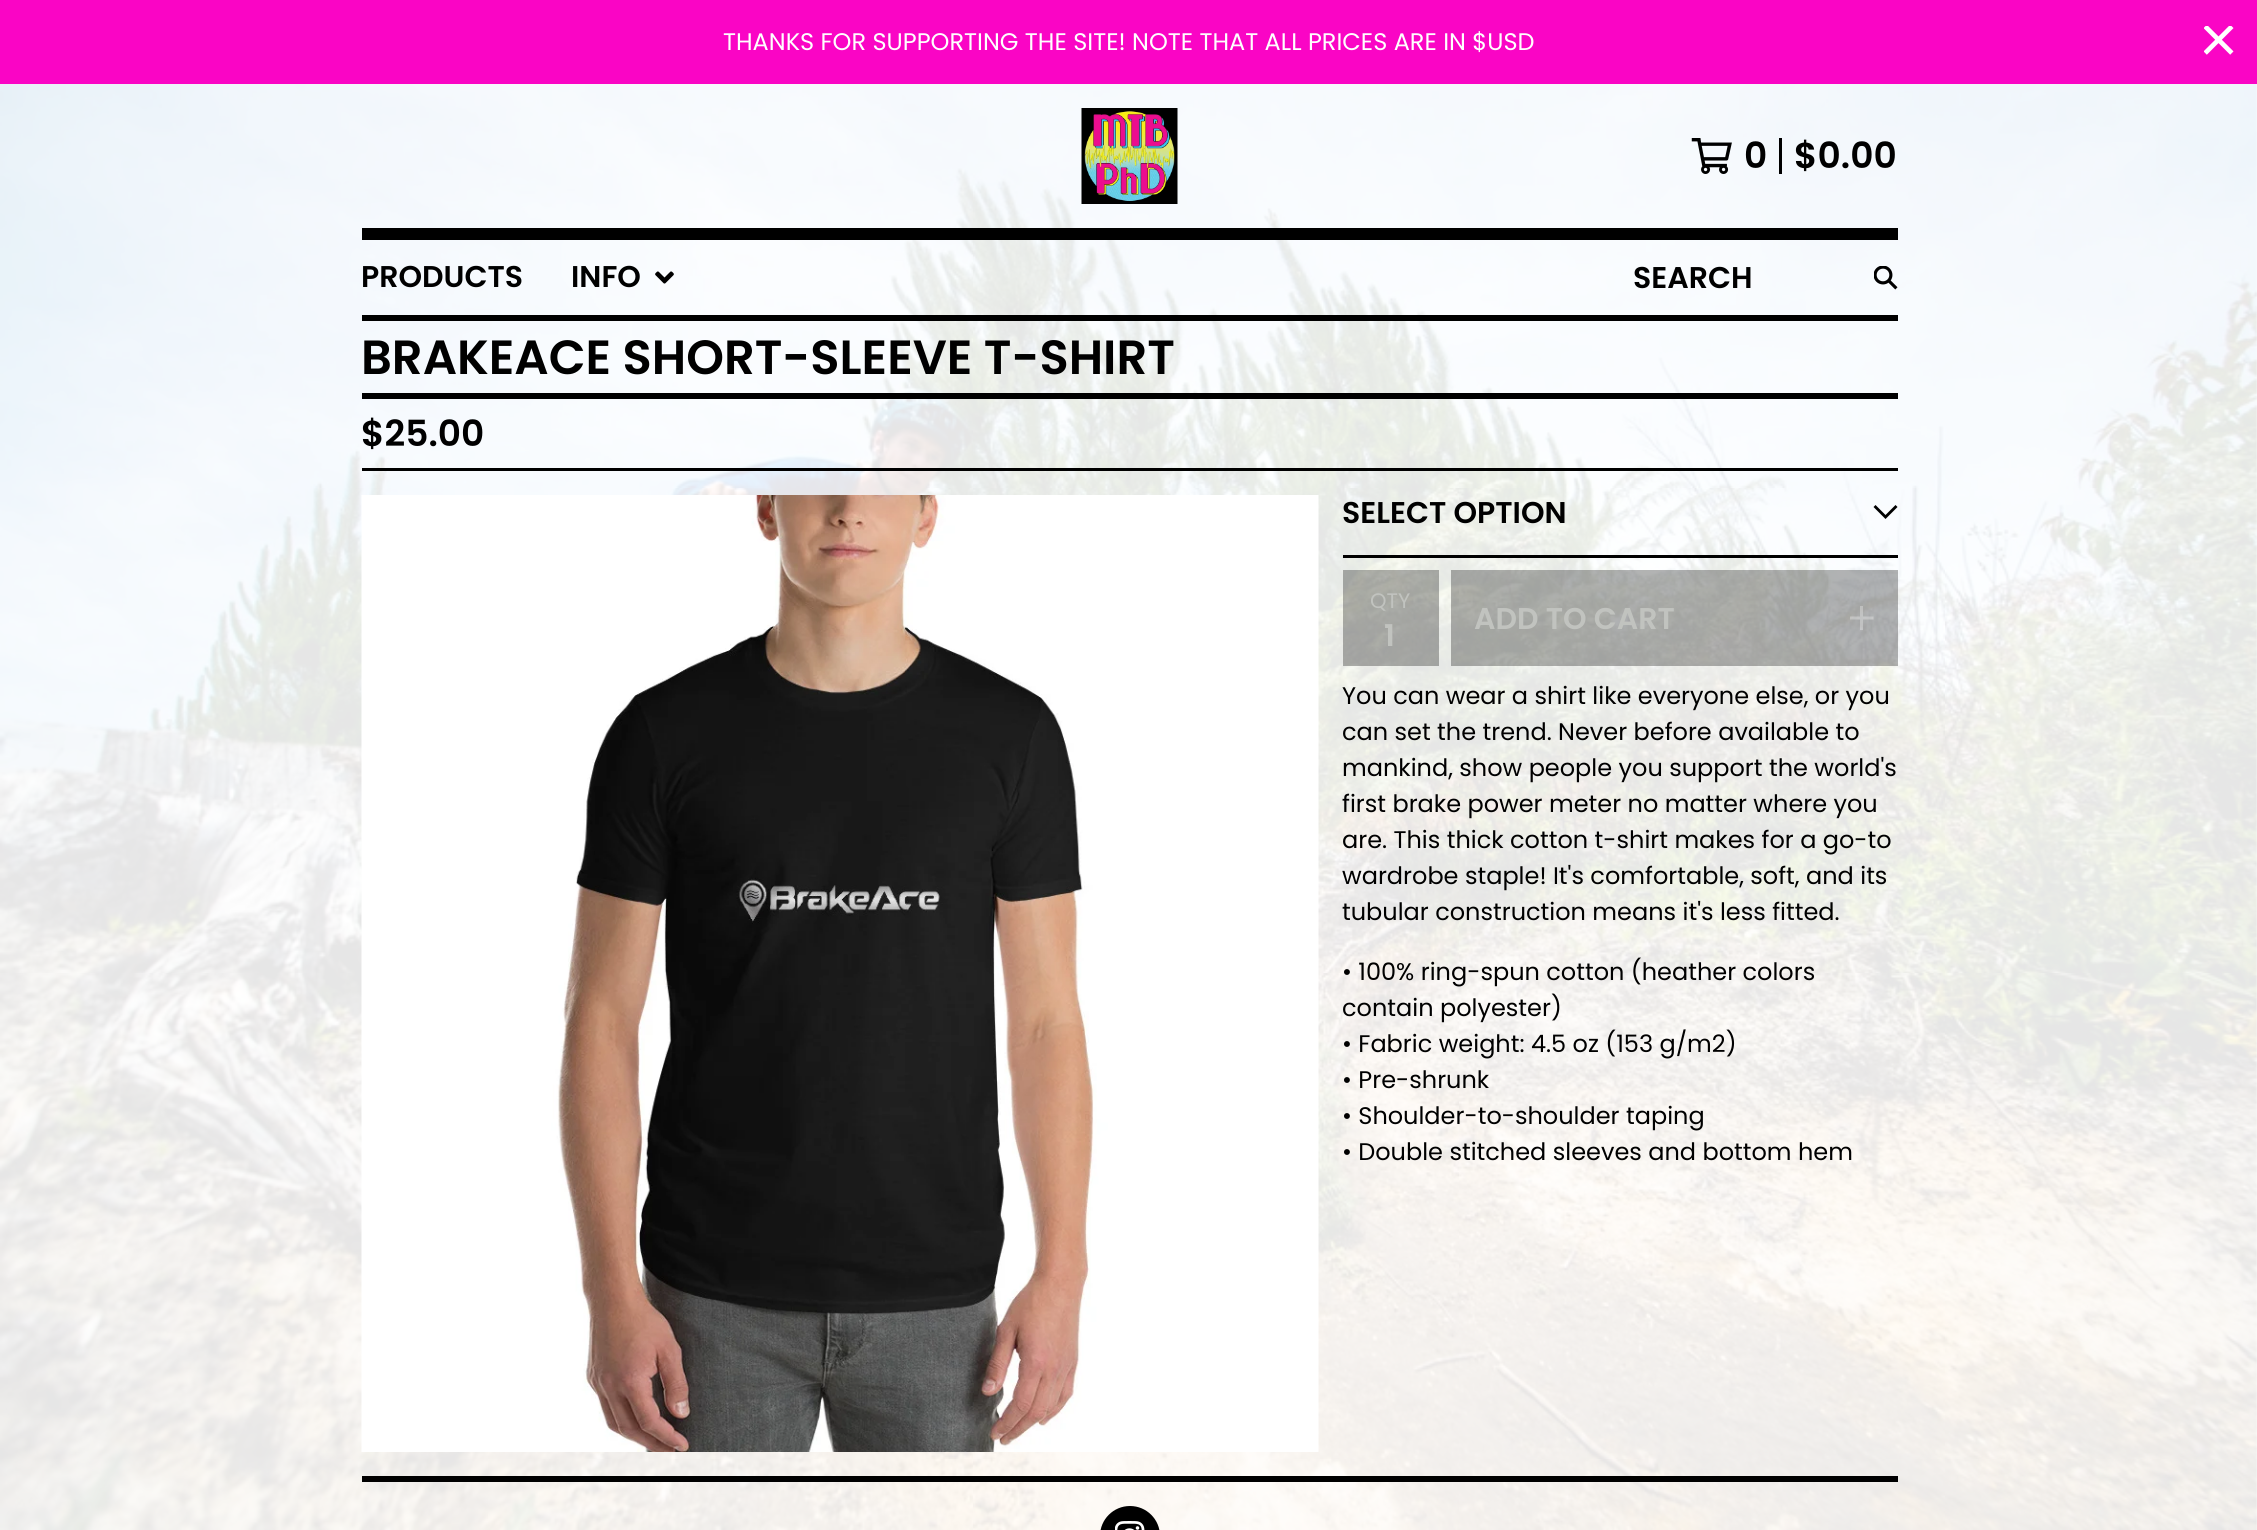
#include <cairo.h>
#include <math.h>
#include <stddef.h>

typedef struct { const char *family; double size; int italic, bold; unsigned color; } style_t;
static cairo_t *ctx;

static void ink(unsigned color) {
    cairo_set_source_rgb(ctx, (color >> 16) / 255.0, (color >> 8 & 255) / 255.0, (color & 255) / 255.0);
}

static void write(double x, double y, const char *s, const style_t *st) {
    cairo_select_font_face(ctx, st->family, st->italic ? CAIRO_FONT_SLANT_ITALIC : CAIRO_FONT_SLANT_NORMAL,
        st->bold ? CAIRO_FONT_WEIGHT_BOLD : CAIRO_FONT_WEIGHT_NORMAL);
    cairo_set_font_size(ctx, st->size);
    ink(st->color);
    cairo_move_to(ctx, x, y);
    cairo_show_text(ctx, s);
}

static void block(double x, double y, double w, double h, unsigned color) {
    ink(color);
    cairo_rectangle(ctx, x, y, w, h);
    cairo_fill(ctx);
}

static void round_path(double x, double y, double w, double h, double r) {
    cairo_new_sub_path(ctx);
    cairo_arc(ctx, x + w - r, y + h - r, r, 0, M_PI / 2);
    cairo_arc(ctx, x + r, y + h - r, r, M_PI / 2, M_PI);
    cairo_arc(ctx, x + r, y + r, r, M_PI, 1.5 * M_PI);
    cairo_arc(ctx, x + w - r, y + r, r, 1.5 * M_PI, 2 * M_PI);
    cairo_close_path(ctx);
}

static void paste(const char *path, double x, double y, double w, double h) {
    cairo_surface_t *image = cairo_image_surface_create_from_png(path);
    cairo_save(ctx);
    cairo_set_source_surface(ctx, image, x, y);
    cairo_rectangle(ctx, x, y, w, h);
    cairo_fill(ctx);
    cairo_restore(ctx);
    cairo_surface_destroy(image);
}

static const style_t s1 = {"Poppins", 24, 0, 0, 0xffffff};
static const style_t s2 = {"Poppins SemiBold", 36, 0, 0, 0x000000};
static const style_t s3 = {"Poppins SemiBold", 30, 0, 0, 0x000000};
static const style_t s4 = {"Poppins SemiBold", 48, 0, 0, 0x000000};
static const style_t s5 = {"Poppins", 21, 0, 0, 0xc1c3bf};
static const style_t s6 = {"Poppins SemiBold", 30, 0, 0, 0xc1c3bf};
static const style_t s7 = {"Poppins", 24, 0, 0, 0x000000};

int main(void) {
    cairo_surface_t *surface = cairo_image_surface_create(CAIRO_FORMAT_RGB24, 2257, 1530);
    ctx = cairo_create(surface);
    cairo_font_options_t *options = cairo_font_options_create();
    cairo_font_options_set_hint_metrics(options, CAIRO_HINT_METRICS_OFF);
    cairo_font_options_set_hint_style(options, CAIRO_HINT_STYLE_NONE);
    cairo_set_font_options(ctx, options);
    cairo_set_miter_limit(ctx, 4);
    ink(0xffffff);
    cairo_paint(ctx);
    paste("pic1.png", 0, 84, 2257, 1446);
    block(0, 0, 2257, 84, 0xfa05c5);
    write(723, 50, "THANKS FOR SUPPORTING THE SITE! NOTE THAT ALL PRICES ARE IN $USD", &s1);
    paste("pic2.png", 2204, 26, 30, 29);
    block(362, 228, 1536, 12, 0x000000);
    paste("pic3.png", 1081, 108, 97, 96);
    paste("pic4.png", 1691, 138, 41, 36);
    block(1779, 138, 3, 36, 0x000000);
    write(1744, 168, "0", &s2);
    write(1794, 168, "$0.00", &s2);
    block(362, 315, 1536, 6, 0x000000);
    write(361, 287, "PRODUCTS", &s3);
    write(571, 287, "INFO", &s3);
    paste("pic5.png", 655, 271, 19, 13);
    write(1633, 288, "SEARCH", &s3);
    paste("pic6.png", 1874, 266, 24, 24);
    block(362, 393, 1536, 6, 0x000000);
    write(361, 374, "BRAKEACE SHORT-SLEEVE T-SHIRT", &s4);
    block(362, 468, 1536, 3, 0x000000);
    write(361, 446, "$25.00", &s2);
    paste("pic7.png", 361, 495, 958, 957);
    block(1343, 555, 555, 3, 0x000000);
    write(1342, 523, "SELECT OPTION", &s3);
    cairo_set_fill_rule(ctx, CAIRO_FILL_RULE_EVEN_ODD);
    cairo_new_path(ctx);
    cairo_move_to(ctx, 1885.5, 519);
    cairo_line_to(ctx, 1873.5, 507);
    cairo_line_to(ctx, 1875.5, 505);
    cairo_line_to(ctx, 1885.5, 515);
    cairo_line_to(ctx, 1895.5, 505);
    cairo_line_to(ctx, 1897.5, 507);
    cairo_close_path(ctx);
    cairo_fill(ctx);
    cairo_set_source_rgba(ctx, 0, 0, 0, 0.3);
    cairo_rectangle(ctx, 1343, 570, 96, 96);
    cairo_fill(ctx);
    write(1370, 608, "QTY", &s5);
    write(1384, 646, "1", &s6);
    cairo_set_source_rgba(ctx, 0, 0, 0, 0.3);
    cairo_rectangle(ctx, 1451, 570, 447, 96);
    cairo_fill(ctx);
    write(1474, 629, "ADD TO CART", &s6);
    paste("pic8.png", 1850, 606, 24, 24);
    write(1342, 704, "You can wear a shirt like everyone else, or you", &s7);
    write(1342, 740, "can set the trend. Never before available to", &s7);
    write(1342, 776, "mankind, show people you support the world's", &s7);
    write(1342, 812, "first brake power meter no matter where you", &s7);
    write(1342, 848, "are. This thick cotton t-shirt makes for a go-to", &s7);
    write(1342, 884, "wardrobe staple! It's comfortable, soft, and its", &s7);
    write(1342, 920, "tubular construction means it's less fitted.", &s7);
    write(1342, 980, "• 100% ring-spun cotton (heather colors", &s7);
    write(1342, 1016, "contain polyester)", &s7);
    write(1342, 1052, "• Fabric weight: 4.5 oz (153 g/m2)", &s7);
    write(1342, 1088, "• Pre-shrunk", &s7);
    write(1342, 1124, "• Shoulder-to-shoulder taping", &s7);
    write(1342, 1160, "• Double stitched sleeves and bottom hem", &s7);
    block(362, 1476, 1536, 6, 0x000000);
    round_path(1100, 1506, 60, 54, 30);
    cairo_fill(ctx);
    paste("pic9.png", 1115, 1521, 30, 9);
    cairo_surface_write_to_png(surface, "screenshot.png");
    cairo_font_options_destroy(options);
    cairo_destroy(ctx);
    cairo_surface_destroy(surface);
    return 0;
}
